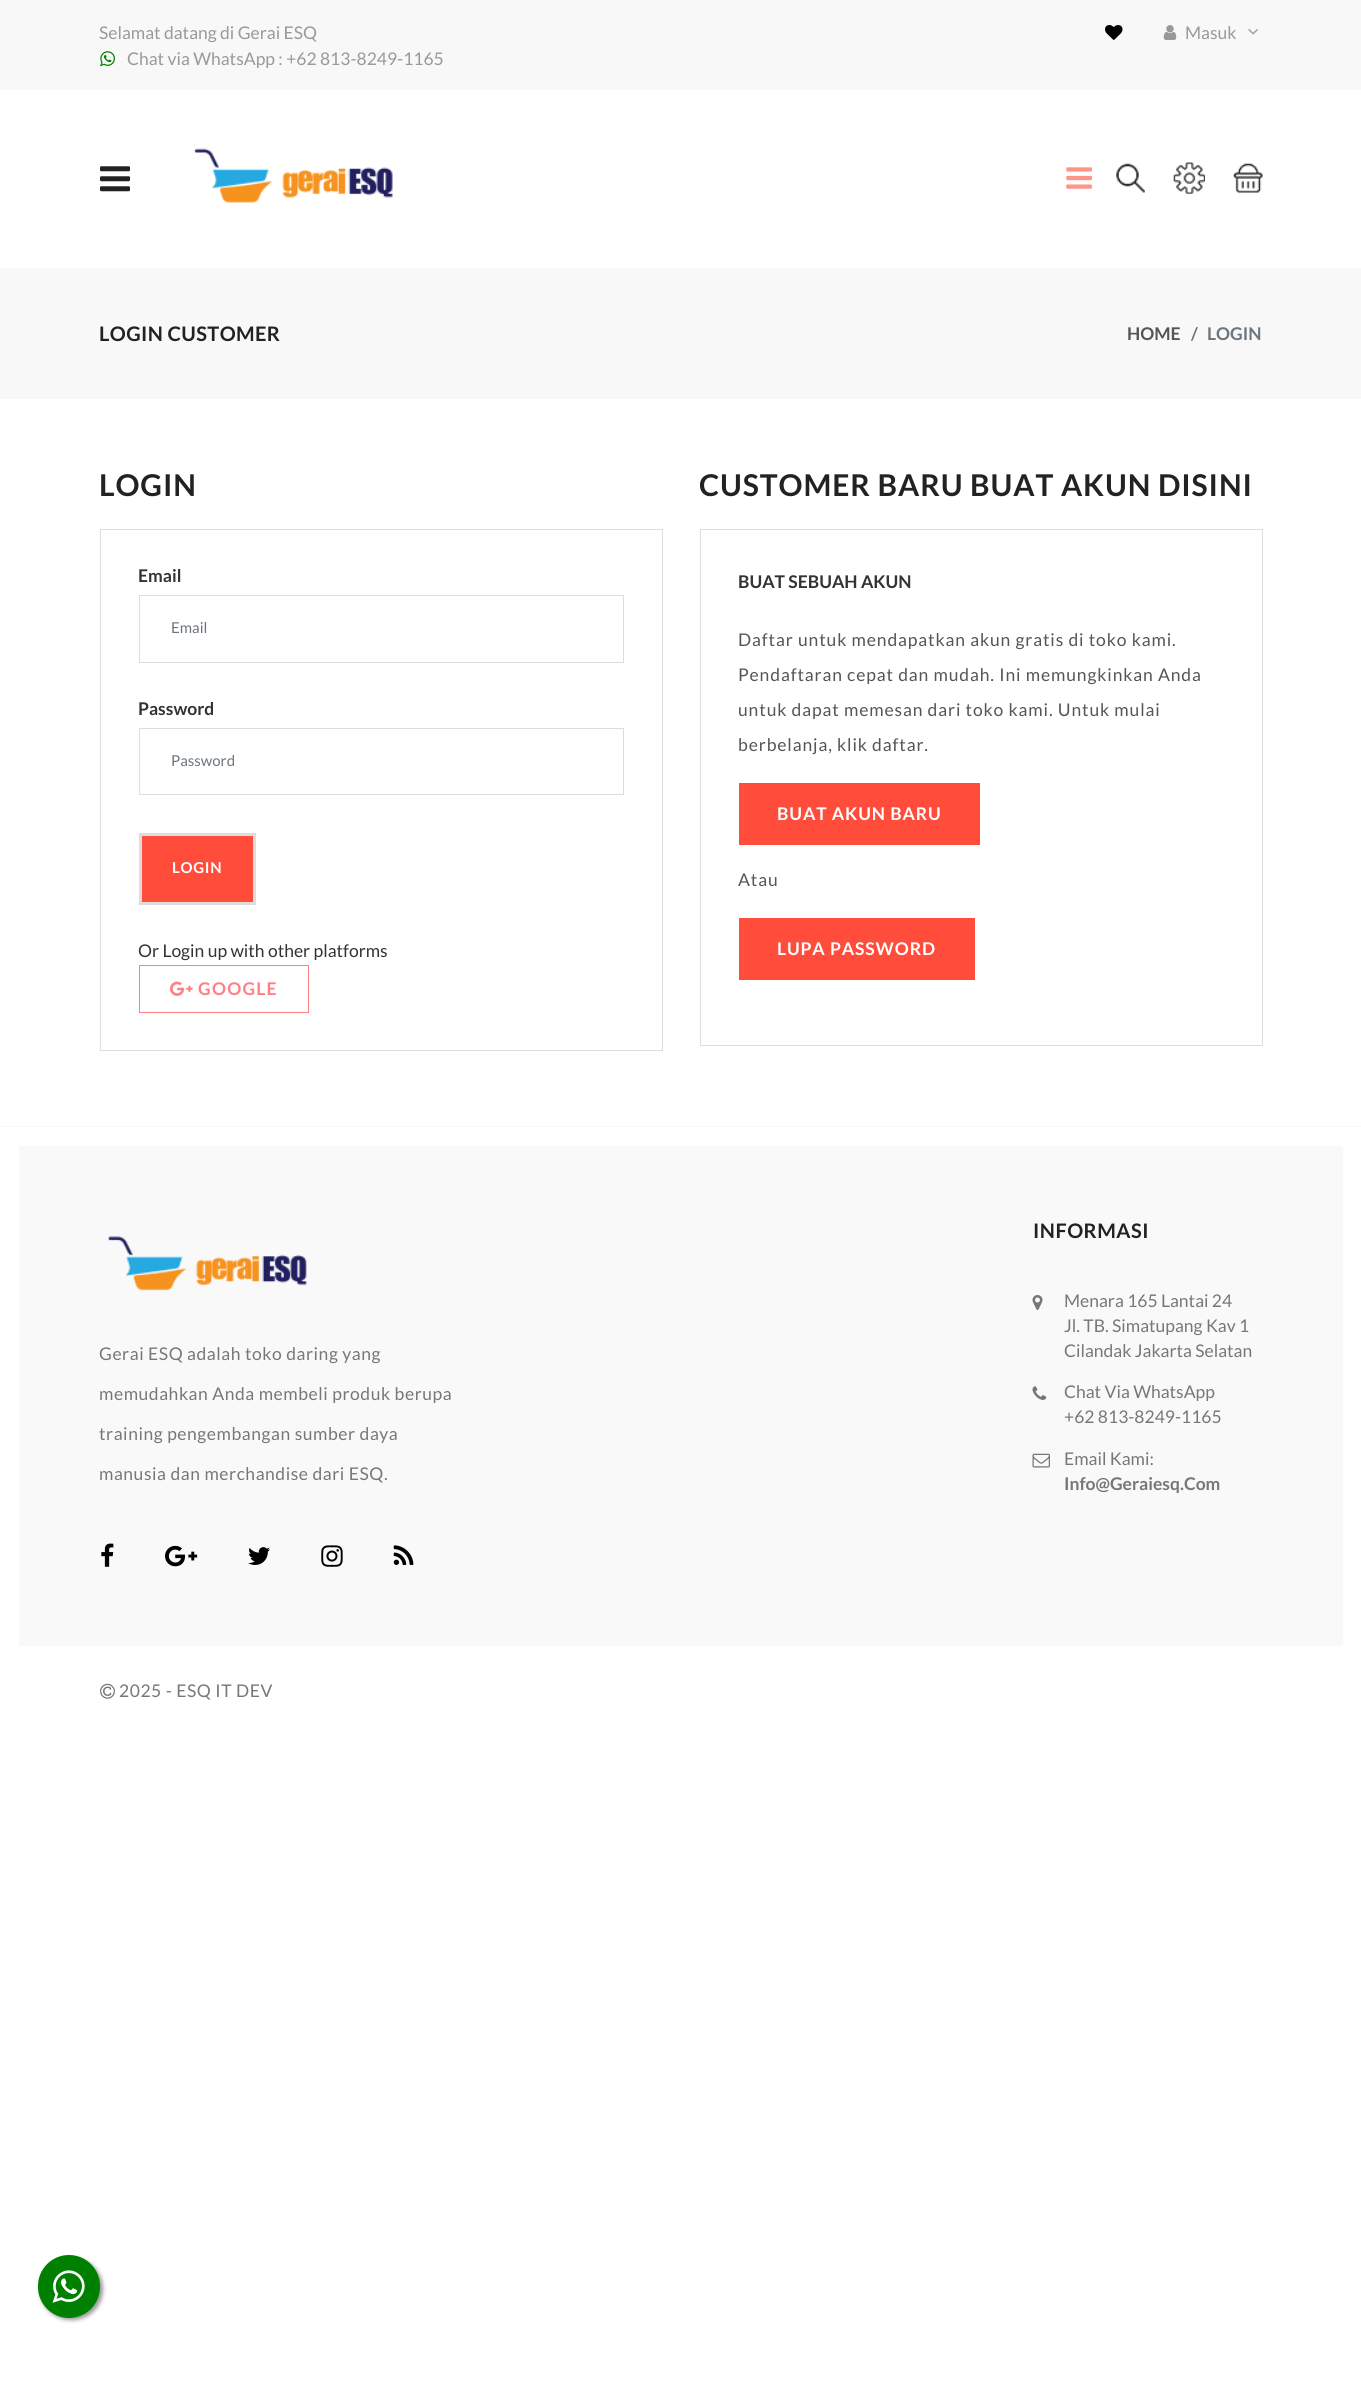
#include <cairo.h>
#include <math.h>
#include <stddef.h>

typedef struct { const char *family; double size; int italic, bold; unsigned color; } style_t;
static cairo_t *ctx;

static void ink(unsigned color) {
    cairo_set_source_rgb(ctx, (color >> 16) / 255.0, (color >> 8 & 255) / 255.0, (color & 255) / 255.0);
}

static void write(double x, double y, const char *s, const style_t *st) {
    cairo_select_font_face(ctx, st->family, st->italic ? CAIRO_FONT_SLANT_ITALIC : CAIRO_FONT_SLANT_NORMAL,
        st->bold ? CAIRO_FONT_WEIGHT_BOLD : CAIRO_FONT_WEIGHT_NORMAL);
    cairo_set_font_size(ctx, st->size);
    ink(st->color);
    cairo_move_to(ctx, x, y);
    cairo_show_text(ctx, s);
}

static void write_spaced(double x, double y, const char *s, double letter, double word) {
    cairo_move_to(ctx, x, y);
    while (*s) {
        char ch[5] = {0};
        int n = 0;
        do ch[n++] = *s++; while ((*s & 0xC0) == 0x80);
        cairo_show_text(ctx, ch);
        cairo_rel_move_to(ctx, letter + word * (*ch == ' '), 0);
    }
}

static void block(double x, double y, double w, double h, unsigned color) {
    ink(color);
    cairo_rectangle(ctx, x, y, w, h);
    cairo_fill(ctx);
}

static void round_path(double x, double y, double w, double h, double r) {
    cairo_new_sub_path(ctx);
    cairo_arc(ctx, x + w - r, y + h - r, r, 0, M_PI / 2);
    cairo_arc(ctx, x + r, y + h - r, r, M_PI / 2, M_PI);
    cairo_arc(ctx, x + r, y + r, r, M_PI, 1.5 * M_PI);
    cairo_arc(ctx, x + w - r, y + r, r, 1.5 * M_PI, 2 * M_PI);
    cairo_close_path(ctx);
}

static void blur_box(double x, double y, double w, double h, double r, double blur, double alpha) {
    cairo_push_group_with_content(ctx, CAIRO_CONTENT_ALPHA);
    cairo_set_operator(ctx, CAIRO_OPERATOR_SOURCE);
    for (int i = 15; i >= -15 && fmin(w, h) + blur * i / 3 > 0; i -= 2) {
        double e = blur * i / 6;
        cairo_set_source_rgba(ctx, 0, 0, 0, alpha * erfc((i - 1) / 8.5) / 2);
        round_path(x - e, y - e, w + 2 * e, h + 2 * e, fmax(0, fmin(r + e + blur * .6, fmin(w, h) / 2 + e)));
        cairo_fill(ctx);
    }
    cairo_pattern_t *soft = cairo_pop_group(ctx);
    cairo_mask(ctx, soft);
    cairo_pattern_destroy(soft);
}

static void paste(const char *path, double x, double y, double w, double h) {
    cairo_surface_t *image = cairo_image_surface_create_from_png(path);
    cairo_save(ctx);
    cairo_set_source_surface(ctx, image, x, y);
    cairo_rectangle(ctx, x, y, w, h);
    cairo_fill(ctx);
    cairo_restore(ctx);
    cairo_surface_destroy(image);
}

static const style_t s1 = {"Lato", 17.5, 0, 0, 0x999999};
static const style_t s2 = {"Lato", 17.5, 0, 1, 0x555555};
static const style_t s3 = {"Lato", 17.5, 0, 1, 0x6c757d};
static const style_t s4 = {"Lato", 17.5, 0, 1, 0x333333};
static const style_t s5 = {"Lato", 15, 0, 0, 0x6c757d};
static const style_t s6 = {"Lato", 17.5, 0, 0, 0x333333};
static const style_t s7 = {"Lato", 17.5, 0, 0, 0x777777};
static const style_t s8 = {"Lato", 17.5, 0, 1, 0x777777};

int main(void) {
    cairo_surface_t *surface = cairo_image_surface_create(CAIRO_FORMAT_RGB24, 1361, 2392);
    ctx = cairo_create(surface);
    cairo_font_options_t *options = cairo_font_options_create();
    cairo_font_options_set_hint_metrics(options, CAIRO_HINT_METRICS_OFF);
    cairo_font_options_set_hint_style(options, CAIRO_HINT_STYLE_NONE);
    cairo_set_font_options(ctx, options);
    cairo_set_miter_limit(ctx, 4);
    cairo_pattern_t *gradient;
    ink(0xffffff);
    cairo_paint(ctx);
    block(0, 0, 1361, 90, 0xf8f8f8);
    write(99, 39, "Selamat datang di Gerai ESQ", &s1);
    paste("pic1.png", 100, 51, 15, 16);
    write(127, 65, "Chat via WhatsApp : +62 813-8249-1165", &s1);
    paste("pic2.png", 1105, 25, 18, 15);
    paste("pic3.png", 1163, 25, 14, 15);
    write(1185, 39, "Masuk", &s1);
    paste("pic4.png", 1248, 29, 10, 6);
    paste("pic5.png", 100, 166, 30, 26);
    paste("pic6.png", 194, 148, 199, 55);
    paste("pic7.png", 1066, 167, 26, 22);
    paste("pic8.png", 1116, 163, 29, 30);
    paste("pic9.png", 1173, 162, 32, 32);
    paste("pic10.png", 1233, 163, 30, 30);
    block(0, 268, 1361, 131, 0xf8f8f8);
    cairo_select_font_face(ctx, "Lato", CAIRO_FONT_SLANT_NORMAL, CAIRO_FONT_WEIGHT_BOLD);
    cairo_set_font_size(ctx, 20);
    ink(0x222222);
    write_spaced(99, 341, "LOGIN CUSTOMER", 0.4, 0);
    write(1127, 340, "HOME", &s2);
    write(1191, 340, "/", &s3);
    write(1207, 340, "LOGIN", &s3);
    cairo_set_font_size(ctx, 30);
    ink(0x222222);
    write_spaced(99, 496, "LOGIN", 0.9, 0);
    cairo_rectangle(ctx, 100.5, 529.5, 562, 521);
    ink(0xdddddd);
    cairo_set_line_width(ctx, 1);
    cairo_stroke(ctx);
    write(138, 582, "Email", &s4);
    cairo_rectangle(ctx, 139.5, 595.5, 484, 67);
    ink(0xdddddd);
    cairo_stroke(ctx);
    write(171, 633, "Email", &s5);
    write(138, 715, "Password", &s4);
    cairo_rectangle(ctx, 139.5, 728.5, 484, 66);
    ink(0xdddddd);
    cairo_stroke(ctx);
    write(171, 766, "Password", &s5);
    gradient = cairo_pattern_create_linear(525, 1124, 820, 613);
    cairo_pattern_add_color_stop_rgba(gradient, 0.5, 1, 0.298, 0.231, 1);
    cairo_pattern_add_color_stop_rgba(gradient, 0.5, 0.937, 0.937, 0.937, 1);
    cairo_set_source(ctx, gradient);
    cairo_pattern_destroy(gradient);
    cairo_rectangle(ctx, 142, 836, 111, 66);
    cairo_fill(ctx);
    cairo_rectangle(ctx, 140.5, 834.5, 114, 69);
    ink(0xdddddd);
    cairo_set_line_width(ctx, 3);
    cairo_stroke(ctx);
    cairo_select_font_face(ctx, "Lato", CAIRO_FONT_SLANT_NORMAL, CAIRO_FONT_WEIGHT_BOLD);
    ink(0xffffff);
    write_spaced(172, 873, "LOGIN", 0.75, 0);
    write(138, 957, "Or Login up with other platforms", &s6);
    cairo_rectangle(ctx, 139.5, 965.5, 169, 47);
    ink(0xff8084);
    cairo_set_line_width(ctx, 1);
    cairo_stroke(ctx);
    paste("pic11.png", 170, 981, 23, 15);
    cairo_select_font_face(ctx, "Lato", CAIRO_FONT_SLANT_NORMAL, CAIRO_FONT_WEIGHT_BOLD);
    write_spaced(198, 995, "GOOGLE", 1.25, 0);
    cairo_set_font_size(ctx, 30);
    ink(0x222222);
    write_spaced(699, 496, "CUSTOMER BARU BUAT AKUN DISINI", 0.9, 0);
    cairo_rectangle(ctx, 700.5, 529.5, 562, 516);
    ink(0xdddddd);
    cairo_stroke(ctx);
    write(738, 588, "BUAT SEBUAH AKUN", &s4);
    cairo_select_font_face(ctx, "Lato", CAIRO_FONT_SLANT_NORMAL, CAIRO_FONT_WEIGHT_NORMAL);
    ink(0x555555);
    write_spaced(738, 646, "Daftar untuk mendapatkan akun gratis di toko kami.", 0.88, 0);
    write_spaced(738, 681, "Pendaftaran cepat dan mudah. Ini memungkinkan Anda", 0.88, 0);
    write_spaced(738, 716, "untuk dapat memesan dari toko kami. Untuk mulai", 0.88, 0);
    write_spaced(738, 751, "berbelanja, klik daftar.", 0.88, 0);
    gradient = cairo_pattern_create_linear(1127, 1065, 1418, 562);
    cairo_pattern_add_color_stop_rgba(gradient, 0.5, 1, 0.298, 0.231, 1);
    cairo_pattern_add_color_stop_rgba(gradient, 0.5, 1, 1, 1, 1);
    cairo_set_source(ctx, gradient);
    cairo_pattern_destroy(gradient);
    cairo_rectangle(ctx, 742, 786, 235, 56);
    cairo_fill(ctx);
    cairo_rectangle(ctx, 740.5, 784.5, 238, 59);
    ink(0xff4c3b);
    cairo_set_line_width(ctx, 3);
    cairo_stroke(ctx);
    cairo_select_font_face(ctx, "Lato", CAIRO_FONT_SLANT_NORMAL, CAIRO_FONT_WEIGHT_BOLD);
    ink(0xffffff);
    write_spaced(777, 820, "BUAT AKUN BARU", 0.88, 0);
    cairo_select_font_face(ctx, "Lato", CAIRO_FONT_SLANT_NORMAL, CAIRO_FONT_WEIGHT_NORMAL);
    ink(0x555555);
    write_spaced(738, 886, "Atau", 0.88, 0);
    gradient = cairo_pattern_create_linear(1127, 1200, 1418, 697);
    cairo_pattern_add_color_stop_rgba(gradient, 0.5, 1, 0.298, 0.231, 1);
    cairo_pattern_add_color_stop_rgba(gradient, 0.5, 0.937, 0.937, 0.937, 1);
    cairo_set_source(ctx, gradient);
    cairo_pattern_destroy(gradient);
    cairo_rectangle(ctx, 742, 921, 230, 56);
    cairo_fill(ctx);
    cairo_rectangle(ctx, 740.5, 919.5, 233, 59);
    ink(0xff4c3b);
    cairo_stroke(ctx);
    cairo_select_font_face(ctx, "Lato", CAIRO_FONT_SLANT_NORMAL, CAIRO_FONT_WEIGHT_BOLD);
    ink(0xffffff);
    write_spaced(777, 955, "LUPA PASSWORD", 0.88, 0);
    block(0, 1126, 1361, 1, 0xf8f8f9);
    block(19, 1146, 1324, 500, 0xf9f9f9);
    paste("pic12.png", 108, 1236, 199, 55);
    cairo_select_font_face(ctx, "Lato", CAIRO_FONT_SLANT_NORMAL, CAIRO_FONT_WEIGHT_NORMAL);
    ink(0x777777);
    write_spaced(99, 1360, "Gerai ESQ adalah toko daring yang", 0.55, 0);
    write_spaced(99, 1400, "memudahkan Anda membeli produk berupa", 0.55, 0);
    write_spaced(99, 1440, "training pengembangan sumber daya", 0.55, 0);
    write_spaced(99, 1480, "manusia dan merchandise dari ESQ.", 0.55, 0);
    paste("pic13.png", 101, 1543, 13, 24);
    paste("pic14.png", 165, 1545, 33, 22);
    paste("pic15.png", 248, 1547, 22, 18);
    paste("pic16.png", 321, 1545, 22, 22);
    paste("pic17.png", 393, 1545, 21, 20);
    cairo_select_font_face(ctx, "Lato", CAIRO_FONT_SLANT_NORMAL, CAIRO_FONT_WEIGHT_BOLD);
    cairo_set_font_size(ctx, 20);
    ink(0x222222);
    write_spaced(1033, 1238, "INFORMASI", 0.5, 0);
    paste("pic18.png", 1032, 1295, 11, 15);
    write(1064, 1307, "Menara 165 Lantai 24", &s7);
    write(1064, 1332, "Jl. TB. Simatupang Kav 1", &s7);
    write(1064, 1357, "Cilandak Jakarta Selatan", &s7);
    paste("pic19.png", 1032, 1386, 15, 14);
    write(1064, 1398, "Chat Via WhatsApp", &s7);
    write(1064, 1423, "+62 813-8249-1165", &s7);
    paste("pic20.png", 1032, 1453, 18, 15);
    write(1064, 1465, "Email Kami:", &s7);
    write(1064, 1490, "Info@Geraiesq.Com", &s8);
    paste("pic21.png", 100, 1683, 15, 16);
    cairo_select_font_face(ctx, "Lato", CAIRO_FONT_SLANT_NORMAL, CAIRO_FONT_WEIGHT_NORMAL);
    write_spaced(119, 1697, "2025 - ESQ IT DEV", 0.55, 0);
    ink(0x999999);
    blur_box(40, 2258, 63, 62, 31, 2, 1);
    ink(0x008000);
    round_path(38, 2255, 62, 63, 31);
    cairo_fill(ctx);
    paste("pic22.png", 52, 2270, 33, 33);
    cairo_surface_write_to_png(surface, "screenshot.png");
    cairo_font_options_destroy(options);
    cairo_destroy(ctx);
    cairo_surface_destroy(surface);
    return 0;
}
